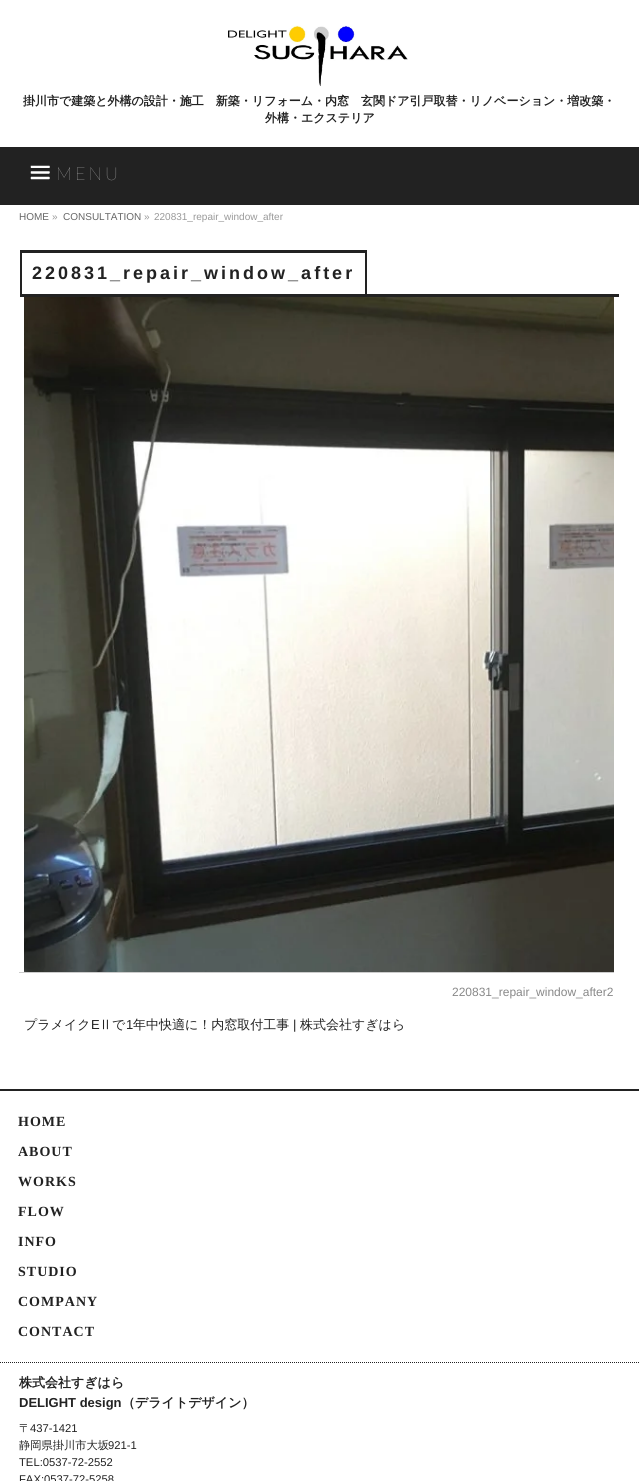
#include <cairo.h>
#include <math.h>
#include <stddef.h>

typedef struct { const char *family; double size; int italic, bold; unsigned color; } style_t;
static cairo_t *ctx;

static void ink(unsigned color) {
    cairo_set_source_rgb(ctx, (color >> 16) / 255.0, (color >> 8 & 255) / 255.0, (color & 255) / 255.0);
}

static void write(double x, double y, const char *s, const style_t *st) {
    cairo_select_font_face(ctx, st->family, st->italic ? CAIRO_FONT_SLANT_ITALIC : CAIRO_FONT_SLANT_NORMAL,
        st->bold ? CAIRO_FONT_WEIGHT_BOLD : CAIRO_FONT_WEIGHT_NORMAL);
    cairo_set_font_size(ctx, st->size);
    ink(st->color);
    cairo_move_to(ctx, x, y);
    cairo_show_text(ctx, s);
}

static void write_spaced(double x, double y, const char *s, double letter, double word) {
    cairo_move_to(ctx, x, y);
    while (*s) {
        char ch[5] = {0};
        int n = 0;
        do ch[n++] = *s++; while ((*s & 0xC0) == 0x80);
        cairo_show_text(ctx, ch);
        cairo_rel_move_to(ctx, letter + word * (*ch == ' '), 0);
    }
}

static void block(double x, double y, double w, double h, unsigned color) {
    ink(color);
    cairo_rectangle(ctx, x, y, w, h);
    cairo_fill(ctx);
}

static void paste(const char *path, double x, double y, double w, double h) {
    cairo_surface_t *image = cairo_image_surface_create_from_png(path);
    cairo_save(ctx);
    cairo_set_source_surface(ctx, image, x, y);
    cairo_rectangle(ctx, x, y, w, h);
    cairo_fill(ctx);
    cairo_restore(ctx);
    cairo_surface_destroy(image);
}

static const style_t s1 = {"WenQuanYi Zen Hei", 12, 0, 1, 0x222222};
static const style_t s2 = {"Liberation Sans", 10, 0, 0, 0x666666};
static const style_t s3 = {"Liberation Sans", 10, 0, 0, 0x999999};
static const style_t s4 = {"Liberation Sans", 12, 0, 0, 0x888888};
static const style_t s5 = {"WenQuanYi Zen Hei Medium", 13, 0, 0, 0x222222};
static const style_t s6 = {"Liberation Sans", 13, 0, 0, 0x222222};
static const style_t s7 = {"WenQuanYi Zen Hei", 13, 0, 1, 0x222222};
static const style_t s8 = {"Liberation Sans", 13, 0, 1, 0x222222};
static const style_t s9 = {"WenQuanYi Zen Hei Medium", 11.25, 0, 0, 0x222222};
static const style_t s10 = {"Liberation Sans", 11.25, 0, 0, 0x222222};

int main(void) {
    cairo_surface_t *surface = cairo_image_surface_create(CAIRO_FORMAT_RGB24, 639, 1481);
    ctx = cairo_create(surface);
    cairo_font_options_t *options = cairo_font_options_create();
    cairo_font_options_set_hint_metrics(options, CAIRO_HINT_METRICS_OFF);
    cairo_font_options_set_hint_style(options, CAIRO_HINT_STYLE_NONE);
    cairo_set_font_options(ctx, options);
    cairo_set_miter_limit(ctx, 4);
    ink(0xffffff);
    cairo_paint(ctx);
    paste("pic1.png", 228, 25, 180, 62);
    write(23, 105, "掛川市で建築と外構の設計・施工　新築・リフォーム・内窓　玄関ドア引戸取替・リノベーション・増改築・", &s1);
    write(265, 122, "外構・エクステリア", &s1);
    block(0, 147, 639, 58, 0x222222);
    paste("pic2.png", 30, 165, 20, 15);
    cairo_select_font_face(ctx, "Lato ExtraLight", CAIRO_FONT_SLANT_NORMAL, CAIRO_FONT_WEIGHT_NORMAL);
    cairo_set_font_size(ctx, 18);
    ink(0xffffff);
    write_spaced(56, 180, "MENU", 3, 0);
    write(19, 220, "HOME", &s2);
    write(52, 220, "»", &s3);
    write(63, 220, "CONSULTATION", &s2);
    write(144, 220, "»", &s3);
    write(154, 220, "220831_repair_window_after", &s3);
    block(20, 294, 599, 3, 0x222222);
    block(20, 250, 347, 3, 0x222222);
    block(365, 250, 2, 44, 0x222222);
    block(20, 250, 2, 44, 0x222222);
    cairo_select_font_face(ctx, "Liberation Sans", CAIRO_FONT_SLANT_NORMAL, CAIRO_FONT_WEIGHT_BOLD);
    cairo_set_font_size(ctx, 18);
    write_spaced(32, 279, "220831_repair_window_after", 3, 0);
    paste("pic3.png", 24, 297, 590, 675);
    block(19, 972, 595, 1, 0xcccccc);
    write(452, 996, "220831_repair_window_after2", &s4);
    write(24, 1029, "プラメイク", &s5);
    write(91, 1029, "E", &s6);
    write(99, 1029, "Ⅱで", &s5);
    write(126, 1029, "1", &s6);
    write(133, 1029, "年中快適に！内窓取付工事", &s5);
    write(293, 1029, "|", &s6);
    write(300, 1029, "株式会社すぎはら", &s5);
    block(0, 1089, 639, 2, 0x222222);
    cairo_select_font_face(ctx, "Liberation Serif", CAIRO_FONT_SLANT_NORMAL, CAIRO_FONT_WEIGHT_BOLD);
    cairo_set_font_size(ctx, 14);
    write_spaced(18, 1126, "HOME", 1, 0);
    write_spaced(18, 1156, "ABOUT", 1, 0);
    write_spaced(18, 1186, "WORKS", 1, 0);
    write_spaced(18, 1216, "FLOW", 1, 0);
    write_spaced(18, 1246, "INFO", 1, 0);
    write_spaced(18, 1276, "STUDIO", 1, 0);
    write_spaced(18, 1306, "COMPANY", 1, 0);
    write_spaced(18, 1336, "CONTACT", 1, 0);
    cairo_new_path(ctx);
    cairo_move_to(ctx, 0, 1362.5);
    cairo_line_to(ctx, 639, 1362.5);
    cairo_set_line_width(ctx, 1);
    cairo_set_dash(ctx, (double[]){1, 1}, 2, 0);
    cairo_stroke(ctx);
    write(19, 1387, "株式会社すぎはら", &s7);
    write(19, 1407, "DELIGHT design", &s8);
    write(122, 1407, "（デライトデザイン）", &s7);
    write(19, 1432, "〒", &s9);
    write(30, 1432, "437-1421", &s10);
    write(19, 1449, "静岡県掛川市大坂", &s9);
    write(108, 1449, "921-1", &s10);
    write(19, 1466, "TEL:0537-72-2552", &s10);
    write(19, 1483, "FAX:0537-72-5258", &s10);
    cairo_surface_write_to_png(surface, "screenshot.png");
    cairo_font_options_destroy(options);
    cairo_destroy(ctx);
    cairo_surface_destroy(surface);
    return 0;
}
